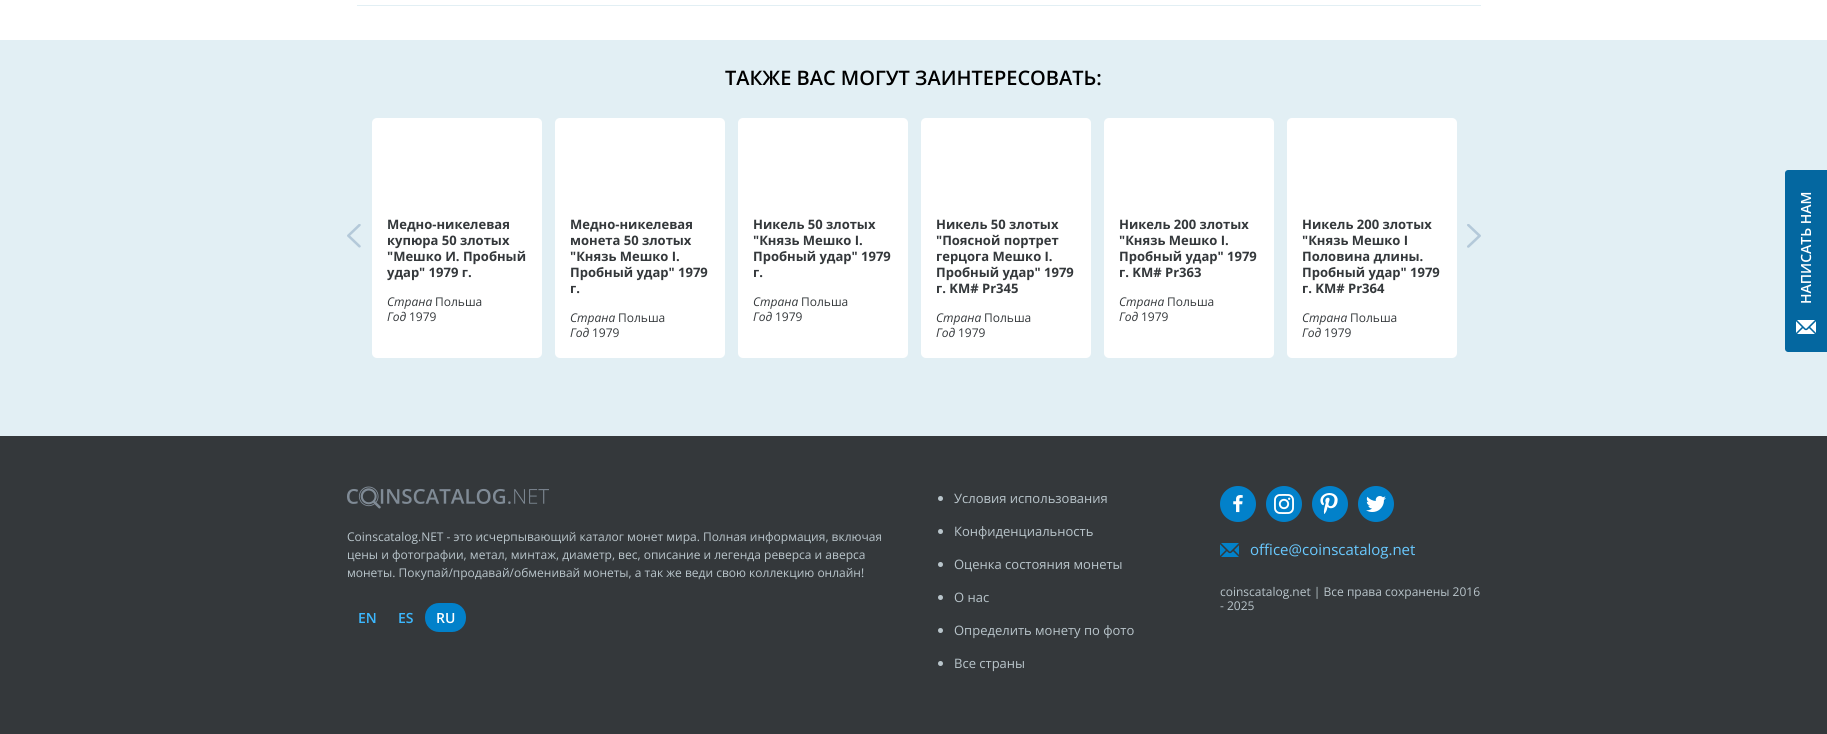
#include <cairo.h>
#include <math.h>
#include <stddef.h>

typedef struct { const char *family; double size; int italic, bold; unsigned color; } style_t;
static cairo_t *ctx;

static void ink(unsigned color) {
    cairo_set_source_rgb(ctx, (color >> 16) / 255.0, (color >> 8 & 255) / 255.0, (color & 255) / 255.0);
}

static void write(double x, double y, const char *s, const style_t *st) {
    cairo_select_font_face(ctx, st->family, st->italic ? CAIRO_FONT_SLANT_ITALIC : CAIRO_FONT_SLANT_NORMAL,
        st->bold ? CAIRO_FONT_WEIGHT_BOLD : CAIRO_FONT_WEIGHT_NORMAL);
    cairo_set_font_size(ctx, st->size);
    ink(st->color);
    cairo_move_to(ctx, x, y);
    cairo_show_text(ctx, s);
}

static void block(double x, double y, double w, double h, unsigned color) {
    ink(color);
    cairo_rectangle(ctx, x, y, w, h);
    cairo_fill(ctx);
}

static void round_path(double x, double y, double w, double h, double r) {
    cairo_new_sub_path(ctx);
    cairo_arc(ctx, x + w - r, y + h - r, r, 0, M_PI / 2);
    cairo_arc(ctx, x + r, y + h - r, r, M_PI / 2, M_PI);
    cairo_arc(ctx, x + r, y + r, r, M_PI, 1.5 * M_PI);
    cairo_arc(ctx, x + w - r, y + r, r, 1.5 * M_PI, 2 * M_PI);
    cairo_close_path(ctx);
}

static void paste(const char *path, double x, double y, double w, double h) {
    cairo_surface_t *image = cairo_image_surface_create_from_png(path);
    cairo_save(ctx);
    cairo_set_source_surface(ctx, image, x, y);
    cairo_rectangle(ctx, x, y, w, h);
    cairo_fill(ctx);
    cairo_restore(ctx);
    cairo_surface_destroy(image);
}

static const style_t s1 = {"Open Sans SemiBold", 20, 0, 0, 0x000000};
static const style_t s2 = {"Open Sans", 13, 0, 1, 0x34383b};
static const style_t s3 = {"Open Sans", 12, 1, 0, 0x34383b};
static const style_t s4 = {"Open Sans", 12, 0, 0, 0x34383b};
static const style_t s5 = {"Open Sans SemiBold", 14, 0, 0, 0xffffff};
static const style_t s6 = {"Open Sans", 12, 0, 0, 0xb9c5cb};
static const style_t s7 = {"Open Sans SemiBold", 14, 0, 0, 0x3bb8ff};
static const style_t s8 = {"Open Sans", 13, 0, 0, 0xb9c5cb};
static const style_t s9 = {"Open Sans", 15, 0, 0, 0x69c9ff};

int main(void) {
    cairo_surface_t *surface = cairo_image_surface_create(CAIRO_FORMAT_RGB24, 1827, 734);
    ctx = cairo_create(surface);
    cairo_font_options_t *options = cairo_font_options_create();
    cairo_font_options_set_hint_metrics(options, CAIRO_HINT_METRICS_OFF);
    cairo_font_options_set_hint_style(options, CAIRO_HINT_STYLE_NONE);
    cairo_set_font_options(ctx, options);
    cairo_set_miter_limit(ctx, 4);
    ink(0xffffff);
    cairo_paint(ctx);
    block(357, 5, 1124, 1, 0xe2eff4);
    block(0, 40, 1827, 396, 0xe2eff4);
    write(725, 85, "ТАКЖЕ ВАС МОГУТ ЗАИНТЕРЕСОВАТЬ:", &s1);
    paste("pic1.png", 347, 224, 14, 24);
    ink(0xffffff);
    round_path(372, 118, 170, 240, 5);
    cairo_fill(ctx);
    write(387, 229, "Медно-никелевая", &s2);
    write(387, 245, "купюра 50 злотых", &s2);
    write(387, 261, "\"Мешко И. Пробный", &s2);
    write(387, 277, "удар\" 1979 г.", &s2);
    write(387, 306, "Страна", &s3);
    write(435, 306, "Польша", &s4);
    write(387, 321, "Год", &s3);
    write(409, 321, "1979", &s4);
    ink(0xffffff);
    round_path(555, 118, 170, 240, 5);
    cairo_fill(ctx);
    write(570, 229, "Медно-никелевая", &s2);
    write(570, 245, "монета 50 злотых", &s2);
    write(570, 261, "\"Князь Мешко I.", &s2);
    write(570, 277, "Пробный удар\" 1979", &s2);
    write(570, 293, "г.", &s2);
    write(570, 322, "Страна", &s3);
    write(618, 322, "Польша", &s4);
    write(570, 337, "Год", &s3);
    write(592, 337, "1979", &s4);
    ink(0xffffff);
    round_path(738, 118, 170, 240, 5);
    cairo_fill(ctx);
    write(753, 229, "Никель 50 злотых", &s2);
    write(753, 245, "\"Князь Мешко I.", &s2);
    write(753, 261, "Пробный удар\" 1979", &s2);
    write(753, 277, "г.", &s2);
    write(753, 306, "Страна", &s3);
    write(801, 306, "Польша", &s4);
    write(753, 321, "Год", &s3);
    write(775, 321, "1979", &s4);
    ink(0xffffff);
    round_path(921, 118, 170, 240, 5);
    cairo_fill(ctx);
    write(936, 229, "Никель 50 злотых", &s2);
    write(936, 245, "\"Поясной портрет", &s2);
    write(936, 261, "герцога Мешко I.", &s2);
    write(936, 277, "Пробный удар\" 1979", &s2);
    write(936, 293, "г. KM# Pr345", &s2);
    write(936, 322, "Страна", &s3);
    write(984, 322, "Польша", &s4);
    write(936, 337, "Год", &s3);
    write(958, 337, "1979", &s4);
    ink(0xffffff);
    round_path(1104, 118, 170, 240, 5);
    cairo_fill(ctx);
    write(1119, 229, "Никель 200 злотых", &s2);
    write(1119, 245, "\"Князь Мешко I.", &s2);
    write(1119, 261, "Пробный удар\" 1979", &s2);
    write(1119, 277, "г. KM# Pr363", &s2);
    write(1119, 306, "Страна", &s3);
    write(1167, 306, "Польша", &s4);
    write(1119, 321, "Год", &s3);
    write(1141, 321, "1979", &s4);
    ink(0xffffff);
    round_path(1287, 118, 170, 240, 5);
    cairo_fill(ctx);
    write(1302, 229, "Никель 200 злотых", &s2);
    write(1302, 245, "\"Князь Мешко I", &s2);
    write(1302, 261, "Половина длины.", &s2);
    write(1302, 277, "Пробный удар\" 1979", &s2);
    write(1302, 293, "г. KM# Pr364", &s2);
    write(1302, 322, "Страна", &s3);
    write(1350, 322, "Польша", &s4);
    write(1302, 337, "Год", &s3);
    write(1324, 337, "1979", &s4);
    paste("pic2.png", 1467, 224, 14, 24);
    ink(0x0467a0);
    cairo_new_path(ctx);
    cairo_move_to(ctx, 1788, 170);
    cairo_line_to(ctx, 1827, 170);
    cairo_line_to(ctx, 1827, 352);
    cairo_line_to(ctx, 1788, 352);
    cairo_curve_to(ctx, 1786.5, 352, 1785, 350.5, 1785, 349);
    cairo_line_to(ctx, 1785, 173);
    cairo_curve_to(ctx, 1785, 171.5, 1786.5, 170, 1788, 170);
    cairo_close_path(ctx);
    cairo_fill(ctx);
    cairo_save(ctx);
    cairo_translate(ctx, 1811, 304);
    cairo_rotate(ctx, -90 * M_PI / 180);
    write(0, 0, "НАПИСАТЬ НАМ", &s5);
    cairo_restore(ctx);
    paste("pic3.png", 1796, 320, 20, 14);
    block(0, 436, 1827, 298, 0x34383b);
    paste("pic4.png", 347, 486, 202, 23);
    write(347, 541, "Coinscatalog.NET - это исчерпывающий каталог монет мира. Полная информация, включая", &s6);
    write(347, 559, "цены и фотографии, метал, минтаж, диаметр, вес, описание и легенда реверса и аверса", &s6);
    write(347, 577, "монеты. Покупай/продавай/обменивай монеты, а так же веди свою коллекцию онлайн!", &s6);
    write(358, 623, "EN", &s7);
    write(398, 623, "ES", &s7);
    ink(0x0281ca);
    round_path(425, 603, 41, 29, 14);
    cairo_fill(ctx);
    write(436, 623, "RU", &s5);
    ink(0xb9c5cb);
    cairo_new_path(ctx);
    cairo_arc(ctx, 940.5, 498.5, 2.5, 0, 2 * M_PI);
    cairo_fill(ctx);
    write(954, 503, "Условия использования", &s8);
    cairo_new_path(ctx);
    cairo_arc(ctx, 940.5, 531.5, 2.5, 0, 2 * M_PI);
    cairo_fill(ctx);
    write(954, 536, "Конфиденциальность", &s8);
    cairo_new_path(ctx);
    cairo_arc(ctx, 940.5, 564.5, 2.5, 0, 2 * M_PI);
    cairo_fill(ctx);
    write(954, 569, "Оценка состояния монеты", &s8);
    cairo_new_path(ctx);
    cairo_arc(ctx, 940.5, 597.5, 2.5, 0, 2 * M_PI);
    cairo_fill(ctx);
    write(954, 602, "О нас", &s8);
    cairo_new_path(ctx);
    cairo_arc(ctx, 940.5, 630.5, 2.5, 0, 2 * M_PI);
    cairo_fill(ctx);
    write(954, 635, "Определить монету по фото", &s8);
    cairo_new_path(ctx);
    cairo_arc(ctx, 940.5, 663.5, 2.5, 0, 2 * M_PI);
    cairo_fill(ctx);
    write(954, 668, "Все страны", &s8);
    ink(0x0281ca);
    cairo_new_path(ctx);
    cairo_arc(ctx, 1238, 504, 18, 0, 2 * M_PI);
    cairo_fill(ctx);
    paste("pic5.png", 1233, 495, 10, 18);
    cairo_arc(ctx, 1284, 504, 18, 0, 2 * M_PI);
    cairo_fill(ctx);
    paste("pic6.png", 1274, 494, 20, 20);
    cairo_arc(ctx, 1330, 504, 18, 0, 2 * M_PI);
    cairo_fill(ctx);
    paste("pic7.png", 1320, 493, 18, 21);
    cairo_arc(ctx, 1376, 504, 18, 0, 2 * M_PI);
    cairo_fill(ctx);
    paste("pic8.png", 1366, 496, 20, 16);
    paste("pic9.png", 1220, 543, 19, 14);
    write(1250, 555, "office@coinscatalog.net", &s9);
    write(1220, 596, "coinscatalog.net | Все права сохранены 2016", &s6);
    write(1220, 610, "- 2025", &s6);
    cairo_surface_write_to_png(surface, "screenshot.png");
    cairo_font_options_destroy(options);
    cairo_destroy(ctx);
    cairo_surface_destroy(surface);
    return 0;
}
